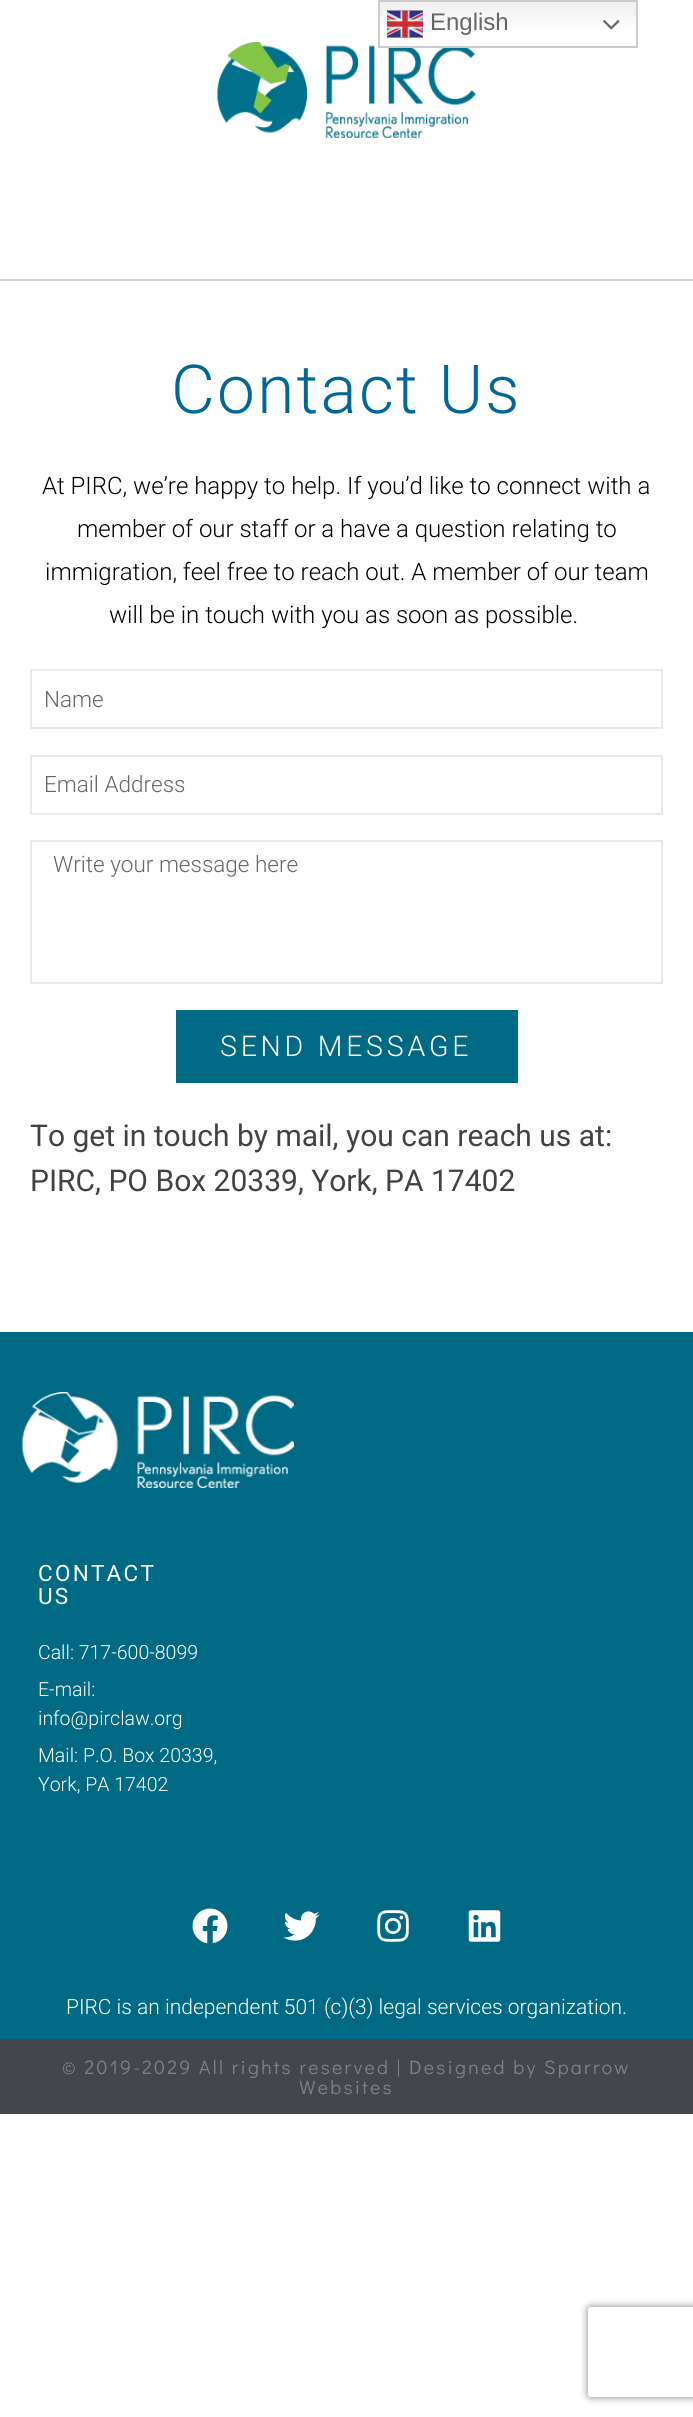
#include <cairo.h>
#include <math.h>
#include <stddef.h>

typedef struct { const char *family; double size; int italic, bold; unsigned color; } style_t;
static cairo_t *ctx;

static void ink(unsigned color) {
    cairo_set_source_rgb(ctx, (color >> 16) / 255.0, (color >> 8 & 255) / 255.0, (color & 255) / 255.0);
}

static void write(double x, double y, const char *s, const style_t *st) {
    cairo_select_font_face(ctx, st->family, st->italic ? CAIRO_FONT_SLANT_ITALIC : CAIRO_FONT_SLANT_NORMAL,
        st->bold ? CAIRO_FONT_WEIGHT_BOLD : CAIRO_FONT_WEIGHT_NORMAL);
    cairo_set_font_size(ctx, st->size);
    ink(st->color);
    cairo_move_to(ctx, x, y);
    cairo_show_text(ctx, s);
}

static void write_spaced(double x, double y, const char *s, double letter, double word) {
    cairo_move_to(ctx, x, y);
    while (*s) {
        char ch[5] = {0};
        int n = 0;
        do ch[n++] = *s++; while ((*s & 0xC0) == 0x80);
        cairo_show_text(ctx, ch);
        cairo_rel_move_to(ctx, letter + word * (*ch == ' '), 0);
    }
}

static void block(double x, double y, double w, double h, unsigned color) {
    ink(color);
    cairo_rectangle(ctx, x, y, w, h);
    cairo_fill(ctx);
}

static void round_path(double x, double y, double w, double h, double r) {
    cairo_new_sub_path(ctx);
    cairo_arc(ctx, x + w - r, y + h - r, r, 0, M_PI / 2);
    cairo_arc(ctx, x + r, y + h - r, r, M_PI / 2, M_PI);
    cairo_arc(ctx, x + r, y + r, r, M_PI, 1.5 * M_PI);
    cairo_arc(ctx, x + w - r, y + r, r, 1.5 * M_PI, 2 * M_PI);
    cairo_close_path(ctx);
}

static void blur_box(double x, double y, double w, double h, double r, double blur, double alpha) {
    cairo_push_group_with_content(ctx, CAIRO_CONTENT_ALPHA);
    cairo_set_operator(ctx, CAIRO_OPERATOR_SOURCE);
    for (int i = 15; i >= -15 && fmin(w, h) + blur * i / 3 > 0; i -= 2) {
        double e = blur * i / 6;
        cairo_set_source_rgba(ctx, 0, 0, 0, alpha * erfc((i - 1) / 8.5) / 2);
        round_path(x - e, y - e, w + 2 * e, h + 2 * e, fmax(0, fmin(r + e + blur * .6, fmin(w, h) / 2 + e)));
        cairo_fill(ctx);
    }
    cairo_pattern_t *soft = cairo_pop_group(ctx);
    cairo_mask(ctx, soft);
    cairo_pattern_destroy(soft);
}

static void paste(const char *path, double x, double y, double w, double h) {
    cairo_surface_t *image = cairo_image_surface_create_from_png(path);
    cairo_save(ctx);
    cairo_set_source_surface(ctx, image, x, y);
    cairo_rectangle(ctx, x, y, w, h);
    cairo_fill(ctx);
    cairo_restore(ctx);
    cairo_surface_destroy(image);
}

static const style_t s1 = {"Liberation Sans", 24, 0, 0, 0x666666};
static const style_t s2 = {"Roboto Light", 24, 0, 0, 0x000000};
static const style_t s3 = {"Roboto Light", 22.5, 0, 0, 0x666666};
static const style_t s4 = {"Roboto", 30, 0, 0, 0x424242};
static const style_t s5 = {"Roboto Light", 19.5, 0, 0, 0xffffff};
static const style_t s6 = {"Roboto Light", 21, 0, 0, 0xffffff};

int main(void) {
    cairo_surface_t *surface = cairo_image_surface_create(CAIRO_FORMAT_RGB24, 693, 2417);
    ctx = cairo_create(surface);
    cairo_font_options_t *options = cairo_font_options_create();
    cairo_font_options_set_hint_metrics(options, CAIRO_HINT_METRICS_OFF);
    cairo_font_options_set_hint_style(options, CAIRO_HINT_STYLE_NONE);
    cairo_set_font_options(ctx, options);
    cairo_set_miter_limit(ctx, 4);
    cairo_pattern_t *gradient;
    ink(0xffffff);
    cairo_paint(ctx);
    paste("pic3.png", 217, 42, 259, 96);
    gradient = cairo_pattern_create_linear(508, 0, 508, 48);
    cairo_pattern_add_color_stop_rgba(gradient, 0, 0.937, 0.937, 0.937, 1);
    cairo_pattern_add_color_stop_rgba(gradient, 0.7, 1, 1, 1, 1);
    cairo_set_source(ctx, gradient);
    cairo_pattern_destroy(gradient);
    cairo_rectangle(ctx, 380, 2, 256, 44);
    cairo_fill(ctx);
    cairo_rectangle(ctx, 379, 1, 258, 46);
    ink(0xcccccc);
    cairo_stroke(ctx);
    paste("pic1.png", 387, 10, 36, 28);
    write(430, 30, "English", &s1);
    paste("pic2.png", 603, 20, 17, 10);
    block(0, 279, 693, 2, 0xd3d3d3);
    cairo_select_font_face(ctx, "Roboto Light", CAIRO_FONT_SLANT_NORMAL, CAIRO_FONT_WEIGHT_NORMAL);
    cairo_set_font_size(ctx, 67.5);
    ink(0x006798);
    write_spaced(171, 413, "Contact Us", 2.25, 0);
    write(42, 494, "At PIRC, we’re happy to help. If you’d like to connect with a", &s2);
    write(77, 537, "member of our staff or a have a question relating to", &s2);
    write(45, 580, "immigration, feel free to reach out. A member of our team", &s2);
    write(109, 623, "will be in touch with you as soon as possible.", &s2);
    cairo_rectangle(ctx, 31, 670, 631, 58);
    ink(0xe8e8e8);
    cairo_stroke(ctx);
    write(44, 707, "Name", &s3);
    cairo_rectangle(ctx, 31, 756, 631, 58);
    ink(0xe8e8e8);
    cairo_stroke(ctx);
    write(44, 792, "Email Address", &s3);
    cairo_rectangle(ctx, 31, 841, 631, 142);
    ink(0xe8e8e8);
    cairo_stroke(ctx);
    write(53, 872, "Write your message here", &s3);
    block(176, 1010, 342, 73, 0x006983);
    cairo_set_font_size(ctx, 28.5);
    ink(0xffffff);
    write_spaced(220, 1056, "SEND MESSAGE", 3.75, 0);
    write(30, 1146, "To get in touch by mail, you can reach us at:", &s4);
    write(30, 1191, "PIRC, PO Box 20339, York, PA 17402", &s4);
    block(0, 1332, 693, 707, 0x006983);
    paste("pic4.png", 22, 1392, 272, 96);
    cairo_set_font_size(ctx, 22.5);
    ink(0xffffff);
    write_spaced(38, 1581, "CONTACT", 2.25, 0);
    write_spaced(38, 1604, "US", 2.25, 0);
    write(38, 1659, "Call: 717-600-8099", &s5);
    write(38, 1696, "E-mail:", &s5);
    write(38, 1725, "info@pirclaw.org", &s5);
    write(38, 1762, "Mail: P.O. Box 20339,", &s5);
    write(38, 1791, "York, PA 17402", &s5);
    paste("pic5.png", 192, 1908, 36, 36);
    paste("pic6.png", 283, 1911, 37, 30);
    paste("pic7.png", 377, 1910, 32, 32);
    paste("pic8.png", 468, 1910, 33, 32);
    write(66, 2014, "PIRC is an independent 501 (c)(3) legal services organization.", &s6);
    block(0, 2039, 693, 75, 0x43464c);
    cairo_select_font_face(ctx, "Didact Gothic", CAIRO_FONT_SLANT_NORMAL, CAIRO_FONT_WEIGHT_NORMAL);
    cairo_set_font_size(ctx, 19.5);
    ink(0x7f8185);
    write_spaced(62, 2074, "© 2019-2029 All rights reserved | Designed by Sparrow", 2.25, 0);
    write_spaced(299, 2094, "Websites", 2.25, 0);
    cairo_save(ctx);
    cairo_set_fill_rule(ctx, CAIRO_FILL_RULE_EVEN_ODD);
    cairo_new_path(ctx);
    cairo_move_to(ctx, 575, 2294);
    cairo_line_to(ctx, 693, 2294);
    cairo_line_to(ctx, 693, 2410);
    cairo_line_to(ctx, 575, 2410);
    cairo_close_path(ctx);
    cairo_move_to(ctx, 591, 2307);
    cairo_line_to(ctx, 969, 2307);
    cairo_curve_to(ctx, 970.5, 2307, 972, 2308.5, 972, 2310);
    cairo_line_to(ctx, 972, 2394);
    cairo_curve_to(ctx, 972, 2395.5, 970.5, 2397, 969, 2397);
    cairo_line_to(ctx, 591, 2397);
    cairo_curve_to(ctx, 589.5, 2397, 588, 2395.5, 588, 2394);
    cairo_line_to(ctx, 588, 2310);
    cairo_curve_to(ctx, 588, 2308.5, 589.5, 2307, 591, 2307);
    cairo_close_path(ctx);
    cairo_clip(ctx);
    ink(0x808080);
    blur_box(588, 2307, 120, 90, 3, 4, 1);
    cairo_restore(ctx);
    cairo_surface_write_to_png(surface, "screenshot.png");
    cairo_font_options_destroy(options);
    cairo_destroy(ctx);
    cairo_surface_destroy(surface);
    return 0;
}
